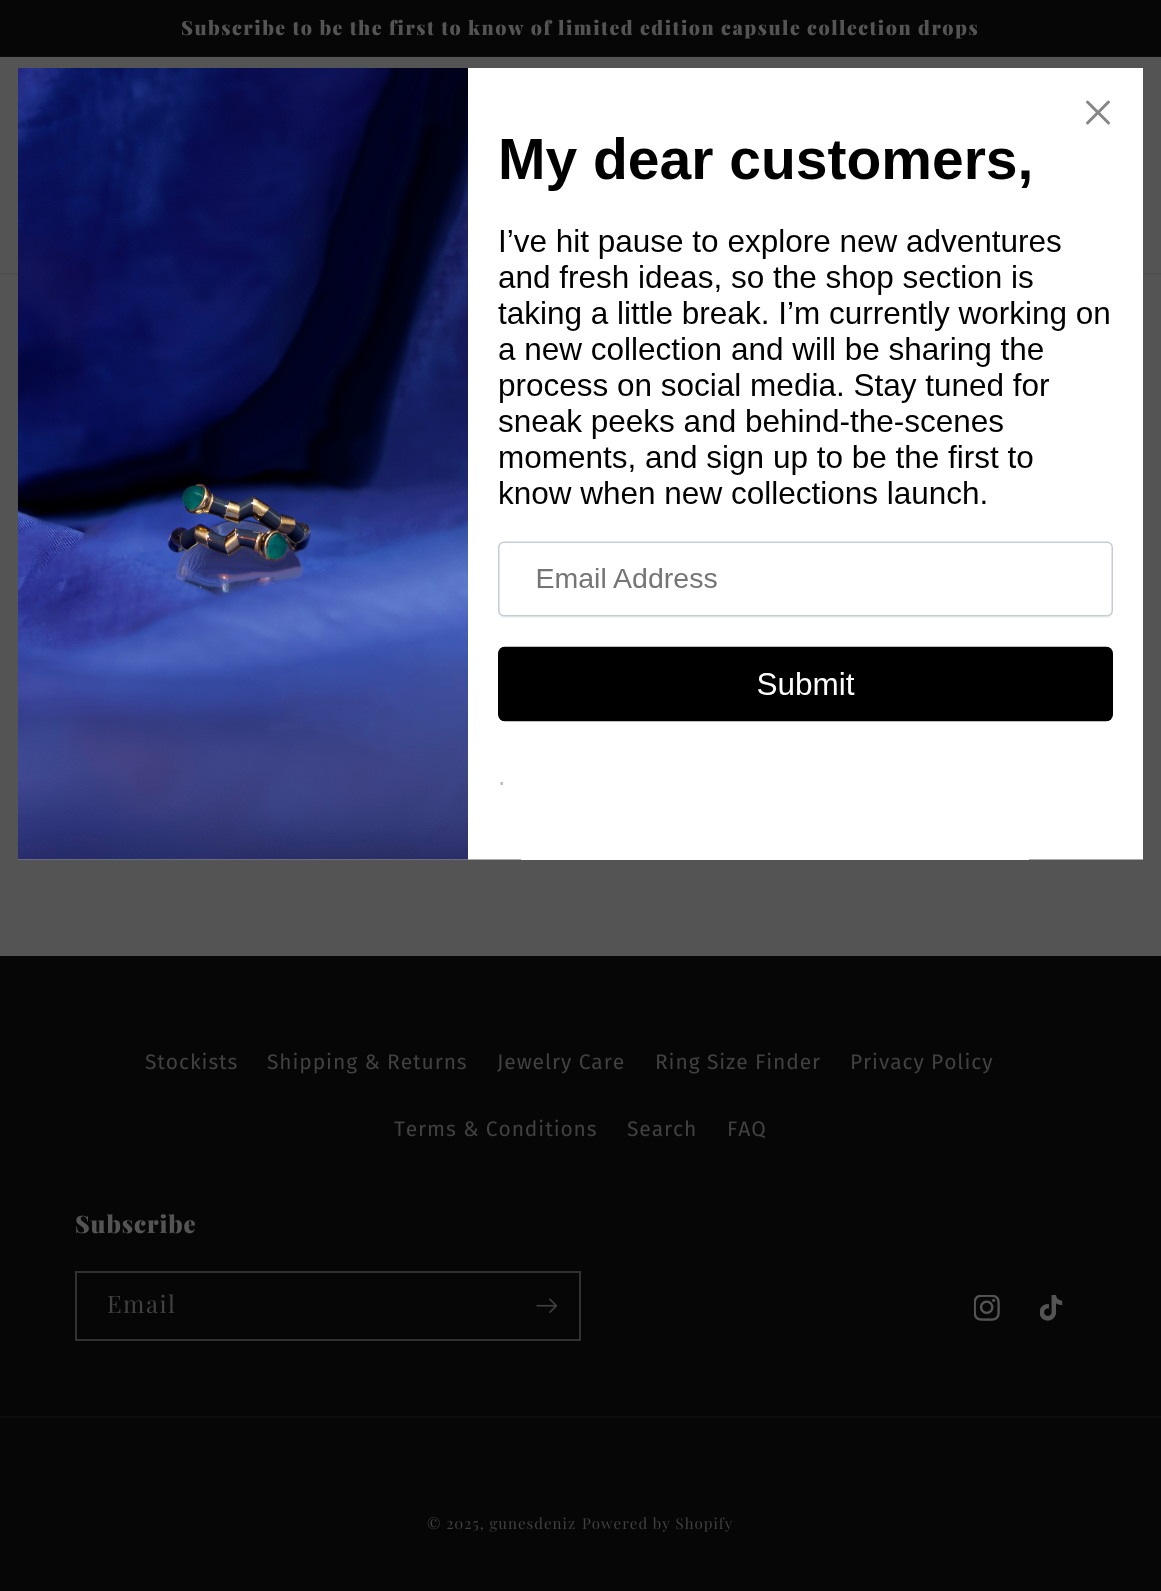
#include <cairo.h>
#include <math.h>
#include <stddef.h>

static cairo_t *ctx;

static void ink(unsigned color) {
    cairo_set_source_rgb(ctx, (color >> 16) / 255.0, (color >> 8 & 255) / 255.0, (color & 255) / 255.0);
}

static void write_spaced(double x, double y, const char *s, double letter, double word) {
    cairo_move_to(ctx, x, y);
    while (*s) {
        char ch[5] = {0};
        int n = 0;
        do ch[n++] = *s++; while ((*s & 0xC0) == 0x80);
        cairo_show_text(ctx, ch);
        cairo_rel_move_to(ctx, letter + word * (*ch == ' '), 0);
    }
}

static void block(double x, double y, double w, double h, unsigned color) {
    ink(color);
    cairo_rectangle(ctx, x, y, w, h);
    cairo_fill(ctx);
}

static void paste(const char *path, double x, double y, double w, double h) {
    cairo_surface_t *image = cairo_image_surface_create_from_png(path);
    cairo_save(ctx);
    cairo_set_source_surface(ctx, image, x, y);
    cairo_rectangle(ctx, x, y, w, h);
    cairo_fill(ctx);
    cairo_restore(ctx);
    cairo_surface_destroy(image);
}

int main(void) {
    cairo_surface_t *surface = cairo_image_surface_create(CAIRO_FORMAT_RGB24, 1161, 1591);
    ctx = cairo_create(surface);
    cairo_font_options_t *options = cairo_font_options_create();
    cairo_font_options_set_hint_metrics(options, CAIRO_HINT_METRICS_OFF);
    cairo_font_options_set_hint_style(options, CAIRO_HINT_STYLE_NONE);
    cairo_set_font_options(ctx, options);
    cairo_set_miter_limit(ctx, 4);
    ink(0xffffff);
    cairo_paint(ctx);
    block(0, 0, 1161, 56, 0x121212);
    block(0, 56, 1161, 1, 0x252525);
    cairo_select_font_face(ctx, "Playfair Display Black", CAIRO_FONT_SLANT_NORMAL, CAIRO_FONT_WEIGHT_NORMAL);
    cairo_set_font_size(ctx, 19.5);
    ink(0xffffff);
    write_spaced(181, 35, "Subscribe to be the first to know of limited edition capsule collection drops", 1.5, 0);
    block(0, 273, 1161, 2, 0xececec);
    block(0, 956, 1161, 635, 0x121212);
    cairo_select_font_face(ctx, "Fira Sans", CAIRO_FONT_SLANT_NORMAL, CAIRO_FONT_WEIGHT_NORMAL);
    cairo_set_font_size(ctx, 21);
    ink(0xc4c4c4);
    write_spaced(145, 1069, "Stockists", 0.9, 0);
    write_spaced(267, 1069, "Shipping & Returns", 0.9, 0);
    write_spaced(497, 1069, "Jewelry Care", 0.9, 0);
    write_spaced(655, 1069, "Ring Size Finder", 0.9, 0);
    write_spaced(850, 1069, "Privacy Policy", 0.9, 0);
    write_spaced(394, 1136, "Terms & Conditions", 0.9, 0);
    write_spaced(627, 1136, "Search", 0.9, 0);
    write_spaced(727, 1136, "FAQ", 0.9, 0);
    cairo_select_font_face(ctx, "Playfair Display Black", CAIRO_FONT_SLANT_NORMAL, CAIRO_FONT_WEIGHT_NORMAL);
    cairo_set_font_size(ctx, 24);
    ink(0xffffff);
    write_spaced(75, 1233, "Subscribe", 0.9, 0);
    cairo_rectangle(ctx, 76, 1272, 504, 68);
    ink(0x949494);
    cairo_stroke(ctx);
    cairo_select_font_face(ctx, "Playfair Display", CAIRO_FONT_SLANT_NORMAL, CAIRO_FONT_WEIGHT_NORMAL);
    ink(0xc4c4c4);
    write_spaced(107, 1313, "Email", 1.5, 0);
    paste("pic2.png", 536, 1298, 22, 15);
    paste("pic3.png", 974, 1295, 26, 26);
    paste("pic4.png", 1040, 1295, 23, 26);
    block(0, 1416, 1161, 2, 0x252525);
    cairo_set_font_size(ctx, 15);
    ink(0xc4c4c4);
    write_spaced(427, 1529, "© 2025, gunesdeniz", 1, 0);
    write_spaced(582, 1529, "Powered by Shopify", 1, 0);
    paste("pic1.png", 0, 0, 1161, 1591);
    cairo_surface_write_to_png(surface, "screenshot.png");
    cairo_font_options_destroy(options);
    cairo_destroy(ctx);
    cairo_surface_destroy(surface);
    return 0;
}
